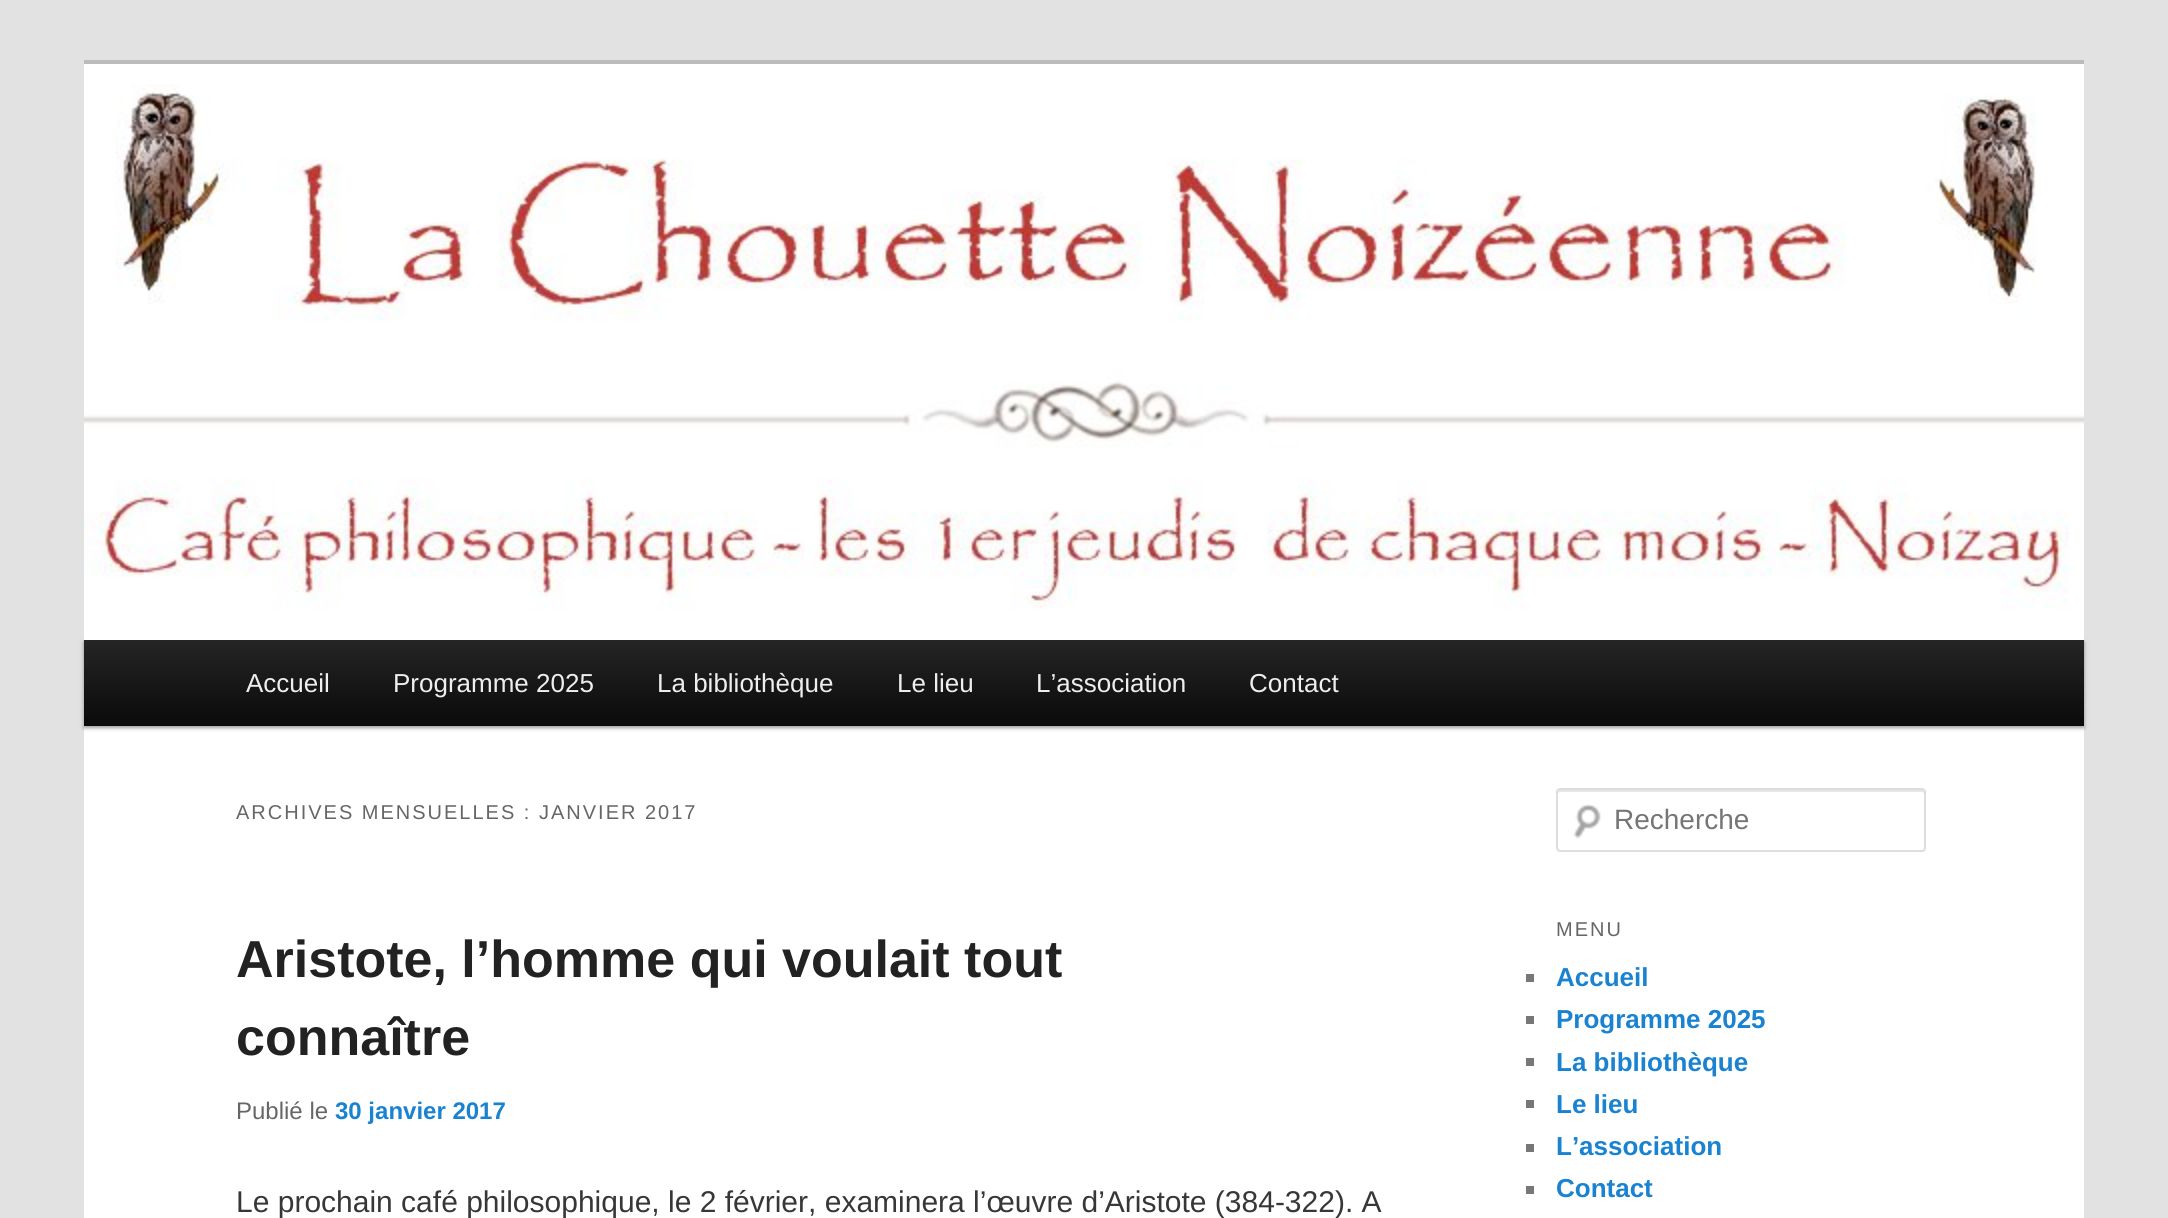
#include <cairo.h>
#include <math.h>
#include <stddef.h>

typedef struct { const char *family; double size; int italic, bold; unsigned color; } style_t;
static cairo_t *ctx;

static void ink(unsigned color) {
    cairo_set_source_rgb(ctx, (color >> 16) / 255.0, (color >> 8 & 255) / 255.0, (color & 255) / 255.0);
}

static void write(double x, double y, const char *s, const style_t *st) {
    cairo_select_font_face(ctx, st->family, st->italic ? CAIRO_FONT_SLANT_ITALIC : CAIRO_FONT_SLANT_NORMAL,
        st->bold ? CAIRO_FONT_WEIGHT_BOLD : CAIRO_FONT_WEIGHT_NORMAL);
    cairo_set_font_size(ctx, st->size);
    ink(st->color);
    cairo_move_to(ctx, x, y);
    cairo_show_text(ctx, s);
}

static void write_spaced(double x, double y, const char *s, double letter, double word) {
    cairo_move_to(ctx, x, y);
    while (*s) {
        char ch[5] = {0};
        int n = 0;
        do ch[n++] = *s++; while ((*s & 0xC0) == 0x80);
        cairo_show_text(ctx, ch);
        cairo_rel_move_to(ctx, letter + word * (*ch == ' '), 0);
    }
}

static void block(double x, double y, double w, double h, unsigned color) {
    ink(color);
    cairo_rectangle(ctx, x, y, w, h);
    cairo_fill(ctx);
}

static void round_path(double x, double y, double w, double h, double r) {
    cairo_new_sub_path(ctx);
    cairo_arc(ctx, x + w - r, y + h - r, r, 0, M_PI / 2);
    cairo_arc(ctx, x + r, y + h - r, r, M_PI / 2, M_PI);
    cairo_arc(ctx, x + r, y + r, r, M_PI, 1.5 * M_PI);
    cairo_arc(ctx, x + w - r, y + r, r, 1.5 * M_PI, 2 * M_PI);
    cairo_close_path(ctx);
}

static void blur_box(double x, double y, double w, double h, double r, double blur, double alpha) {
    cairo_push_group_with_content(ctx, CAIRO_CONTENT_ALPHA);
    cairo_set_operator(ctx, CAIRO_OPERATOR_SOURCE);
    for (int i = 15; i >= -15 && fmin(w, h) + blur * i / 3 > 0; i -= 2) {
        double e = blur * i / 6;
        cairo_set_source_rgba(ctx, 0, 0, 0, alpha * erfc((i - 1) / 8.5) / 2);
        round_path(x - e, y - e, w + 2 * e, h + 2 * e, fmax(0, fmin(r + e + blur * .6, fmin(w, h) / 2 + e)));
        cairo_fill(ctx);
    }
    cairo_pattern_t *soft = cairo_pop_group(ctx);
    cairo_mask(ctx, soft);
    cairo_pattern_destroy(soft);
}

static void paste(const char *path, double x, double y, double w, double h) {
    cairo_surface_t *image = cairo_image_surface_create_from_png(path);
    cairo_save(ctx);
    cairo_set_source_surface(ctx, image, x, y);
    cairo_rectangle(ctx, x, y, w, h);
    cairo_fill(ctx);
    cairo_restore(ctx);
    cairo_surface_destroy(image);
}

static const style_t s1 = {"Liberation Sans", 26, 0, 0, 0xeeeeee};
static const style_t s2 = {"Liberation Sans", 52, 0, 1, 0x222222};
static const style_t s3 = {"Liberation Sans", 24, 0, 0, 0x666666};
static const style_t s4 = {"Liberation Sans", 24, 0, 1, 0x1982d1};
static const style_t s5 = {"Liberation Sans", 30, 0, 0, 0x373737};
static const style_t s6 = {"Liberation Sans", 28, 0, 0, 0x757575};
static const style_t s7 = {"Liberation Sans", 26, 0, 1, 0x1982d1};

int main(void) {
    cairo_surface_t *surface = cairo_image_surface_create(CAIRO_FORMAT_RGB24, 2168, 1218);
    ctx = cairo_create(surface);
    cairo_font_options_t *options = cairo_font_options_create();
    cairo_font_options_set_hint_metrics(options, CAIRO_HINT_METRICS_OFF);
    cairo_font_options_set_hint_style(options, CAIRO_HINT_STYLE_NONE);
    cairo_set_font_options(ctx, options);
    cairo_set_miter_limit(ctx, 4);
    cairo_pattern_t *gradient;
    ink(0xe2e2e2);
    cairo_paint(ctx);
    block(84, 64, 2000, 1154, 0xffffff);
    block(84, 60, 2000, 4, 0xbbbbbb);
    ink(0x000000);
    blur_box(84, 642, 2000, 86, 0, 2, 0.4);
    paste("pic1.png", 84, 84, 2000, 556);
    gradient = cairo_pattern_create_linear(1084, 640, 1084, 726);
    cairo_pattern_add_color_stop_rgba(gradient, 0, 0.145, 0.145, 0.145, 1);
    cairo_pattern_add_color_stop_rgba(gradient, 1, 0.039, 0.039, 0.039, 1);
    cairo_set_source(ctx, gradient);
    cairo_pattern_destroy(gradient);
    cairo_rectangle(ctx, 84, 640, 2000, 86);
    cairo_fill(ctx);
    write(246, 692, "Accueil", &s1);
    write(393, 692, "Programme 2025", &s1);
    write(657, 692, "La bibliothèque", &s1);
    write(897, 692, "Le lieu", &s1);
    write(1036, 692, "L’association", &s1);
    write(1249, 692, "Contact", &s1);
    cairo_set_font_size(ctx, 20);
    ink(0x666666);
    write_spaced(236, 819, "ARCHIVES MENSUELLES : JANVIER 2017", 2, 0);
    write(236, 977, "Aristote, l’homme qui voulait tout", &s2);
    write(236, 1055, "connaître", &s2);
    write(236, 1119, "Publié le", &s3);
    write(335, 1119, "30 janvier 2017", &s4);
    write(236, 1212, "Le prochain café philosophique, le 2 février, examinera l’œuvre d’Aristote (384-322). A", &s5);
    paste("pic2.png", 1573, 804, 28, 35);
    ink(0xe6e6e6);
    cairo_new_path(ctx);
    cairo_move_to(ctx, 1560, 792);
    cairo_line_to(ctx, 1922, 792);
    cairo_curve_to(ctx, 1923, 792, 1924, 793, 1924, 794);
    cairo_line_to(ctx, 1924, 792);
    cairo_curve_to(ctx, 1924, 791, 1923, 790, 1922, 790);
    cairo_line_to(ctx, 1560, 790);
    cairo_curve_to(ctx, 1559, 790, 1558, 791, 1558, 792);
    cairo_line_to(ctx, 1558, 794);
    cairo_curve_to(ctx, 1558, 793, 1559, 792, 1560, 792);
    cairo_close_path(ctx);
    cairo_fill(ctx);
    round_path(1557, 789, 368, 62, 3);
    ink(0xdddddd);
    cairo_stroke(ctx);
    write(1614, 829, "Recherche", &s6);
    cairo_set_font_size(ctx, 20);
    ink(0x666666);
    write_spaced(1556, 936, "MENU", 2, 0);
    block(1526, 974, 8, 8, 0x777777);
    write(1556, 986, "Accueil", &s7);
    block(1526, 1016, 8, 8, 0x777777);
    write(1556, 1028, "Programme 2025", &s7);
    block(1526, 1058, 8, 8, 0x777777);
    write(1556, 1071, "La bibliothèque", &s7);
    block(1526, 1100, 8, 8, 0x777777);
    write(1556, 1113, "Le lieu", &s7);
    block(1526, 1144, 8, 8, 0x777777);
    write(1556, 1155, "L’association", &s7);
    block(1526, 1186, 8, 8, 0x777777);
    write(1556, 1197, "Contact", &s7);
    cairo_surface_write_to_png(surface, "screenshot.png");
    cairo_font_options_destroy(options);
    cairo_destroy(ctx);
    cairo_surface_destroy(surface);
    return 0;
}
